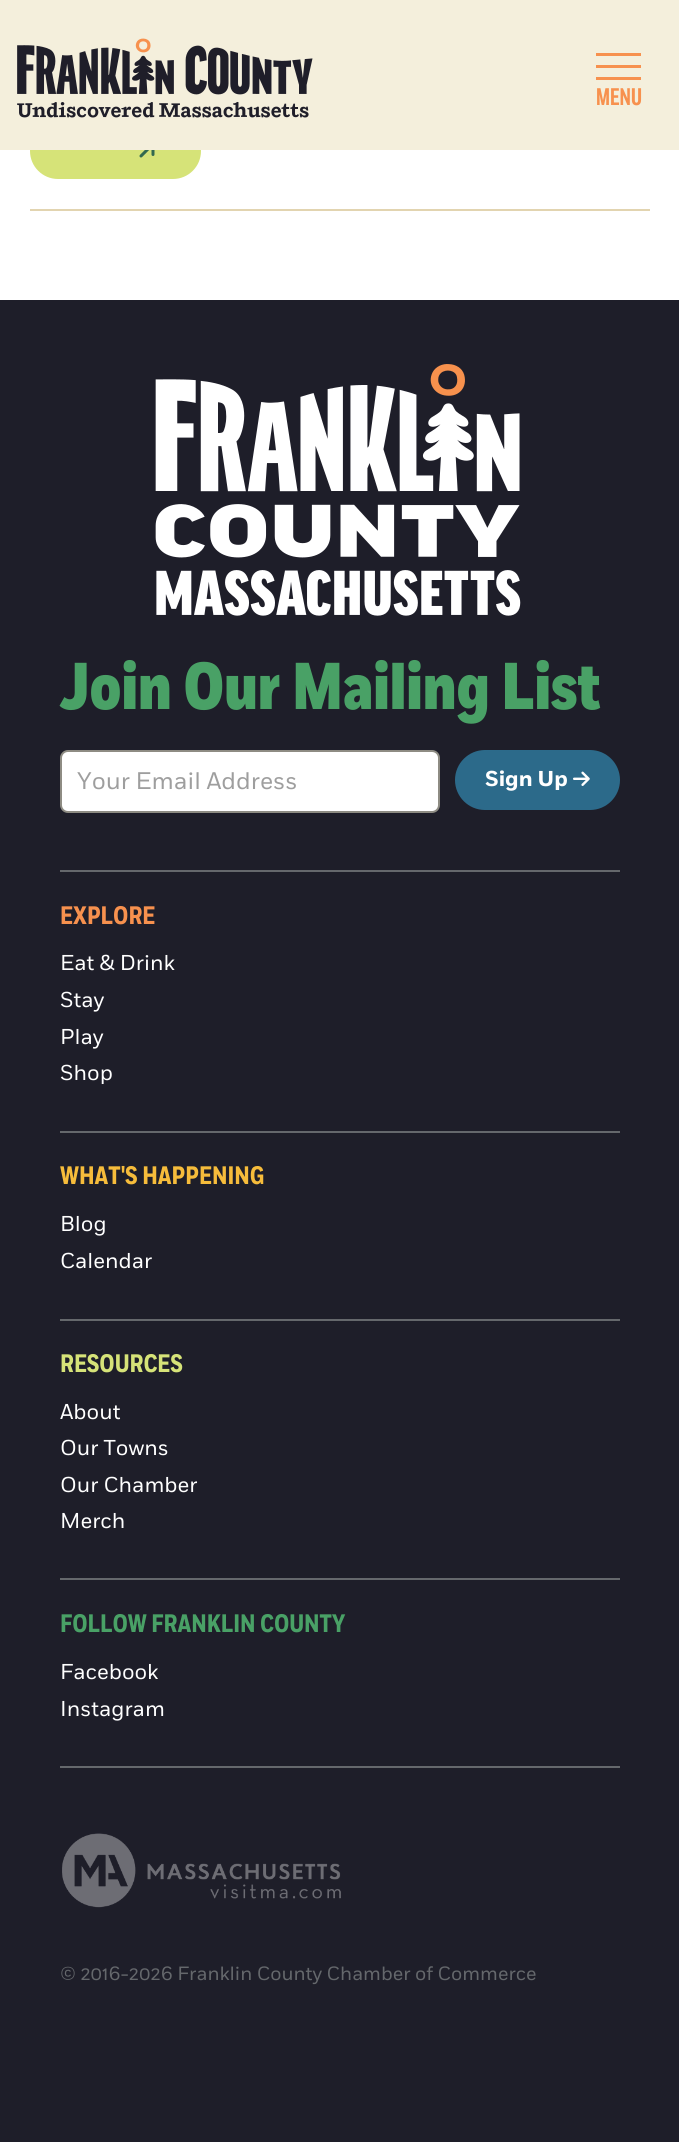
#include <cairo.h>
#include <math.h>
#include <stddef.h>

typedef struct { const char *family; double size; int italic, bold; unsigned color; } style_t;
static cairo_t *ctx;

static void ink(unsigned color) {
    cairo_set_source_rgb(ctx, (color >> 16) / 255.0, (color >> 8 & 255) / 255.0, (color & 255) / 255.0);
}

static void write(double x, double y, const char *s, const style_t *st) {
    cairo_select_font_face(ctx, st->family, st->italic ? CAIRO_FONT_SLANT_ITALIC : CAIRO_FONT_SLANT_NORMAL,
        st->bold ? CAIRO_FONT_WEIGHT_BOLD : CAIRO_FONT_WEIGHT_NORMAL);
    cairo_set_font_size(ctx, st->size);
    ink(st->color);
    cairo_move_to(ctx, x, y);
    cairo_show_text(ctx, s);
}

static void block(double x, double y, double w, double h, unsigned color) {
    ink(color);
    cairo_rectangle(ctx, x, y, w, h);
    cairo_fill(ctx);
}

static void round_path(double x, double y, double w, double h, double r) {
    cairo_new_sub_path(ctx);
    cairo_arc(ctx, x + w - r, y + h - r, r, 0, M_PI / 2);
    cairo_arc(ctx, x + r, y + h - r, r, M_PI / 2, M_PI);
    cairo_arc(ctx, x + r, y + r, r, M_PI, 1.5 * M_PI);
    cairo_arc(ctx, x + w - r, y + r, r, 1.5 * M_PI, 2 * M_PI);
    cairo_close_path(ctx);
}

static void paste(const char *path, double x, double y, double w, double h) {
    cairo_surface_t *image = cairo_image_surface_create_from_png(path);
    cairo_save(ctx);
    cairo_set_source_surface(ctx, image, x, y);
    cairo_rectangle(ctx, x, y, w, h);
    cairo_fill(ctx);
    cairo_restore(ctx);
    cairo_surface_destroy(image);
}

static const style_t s1 = {"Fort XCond", 24, 0, 1, 0xf7914e};
static const style_t s2 = {"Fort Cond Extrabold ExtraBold", 66, 0, 0, 0x49a166};
static const style_t s3 = {"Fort", 24, 0, 0, 0x9e9e9e};
static const style_t s4 = {"Fort", 21.5, 0, 1, 0xffffff};
static const style_t s5 = {"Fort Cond", 25.25, 0, 1, 0xf7914e};
static const style_t s6 = {"Fort", 21.5, 0, 0, 0xffffff};
static const style_t s7 = {"Fort Cond", 25.25, 0, 1, 0xf6bc3b};
static const style_t s8 = {"Fort Cond", 25.25, 0, 1, 0xd6e378};
static const style_t s9 = {"Fort Cond", 25.25, 0, 1, 0x49a166};
static const style_t s10 = {"Fort", 19.2, 0, 0, 0x65686c};

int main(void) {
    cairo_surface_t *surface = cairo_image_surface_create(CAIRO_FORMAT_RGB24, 679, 2142);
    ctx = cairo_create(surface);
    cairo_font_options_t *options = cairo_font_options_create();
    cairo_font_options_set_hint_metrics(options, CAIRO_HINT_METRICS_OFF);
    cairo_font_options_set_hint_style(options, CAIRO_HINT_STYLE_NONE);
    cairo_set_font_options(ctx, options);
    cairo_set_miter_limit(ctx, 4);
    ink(0xffffff);
    cairo_paint(ctx);
    ink(0xd6e378);
    round_path(30, 123, 171, 56, 28);
    cairo_fill(ctx);
    block(0, 0, 679, 150, 0xf4efdc);
    paste("pic1.png", 17, 38, 296, 80);
    block(596, 53, 45, 3, 0xf7914e);
    block(596, 65, 45, 3, 0xf7914e);
    block(596, 77, 45, 3, 0xf7914e);
    write(596, 105, "MENU", &s1);
    block(30, 209, 620, 2, 0xe2d4b0);
    paste("pic2.png", 139, 150, 16, 8);
    block(0, 300, 679, 1842, 0x1e1e29);
    paste("pic3.png", 155, 364, 366, 252);
    write(60, 709, "Join Our Mailing List", &s2);
    ink(0xffffff);
    round_path(61, 751, 378, 61, 7);
    cairo_fill_preserve(ctx);
    ink(0x8e8c83);
    cairo_stroke(ctx);
    write(77, 789, "Your Email Address", &s3);
    ink(0x2c6a8a);
    round_path(455, 750, 165, 60, 30);
    cairo_fill(ctx);
    write(485, 786, "Sign Up", &s4);
    paste("pic4.png", 573, 771, 17, 15);
    block(60, 870, 560, 2, 0x65686c);
    write(60, 924, "EXPLORE", &s5);
    write(60, 970, "Eat & Drink", &s6);
    write(60, 1007, "Stay", &s6);
    write(60, 1044, "Play", &s6);
    write(60, 1080, "Shop", &s6);
    block(60, 1131, 560, 2, 0x65686c);
    write(60, 1184, "WHAT'S HAPPENING", &s7);
    write(60, 1231, "Blog", &s6);
    write(60, 1268, "Calendar", &s6);
    block(60, 1319, 560, 2, 0x65686c);
    write(60, 1372, "RESOURCES", &s8);
    write(60, 1419, "About", &s6);
    write(60, 1455, "Our Towns", &s6);
    write(60, 1492, "Our Chamber", &s6);
    write(60, 1528, "Merch", &s6);
    block(60, 1578, 560, 2, 0x65686c);
    block(60, 1766, 560, 2, 0x65686c);
    write(60, 1632, "FOLLOW FRANKLIN COUNTY", &s9);
    write(60, 1679, "Facebook", &s6);
    write(60, 1716, "Instagram", &s6);
    paste("pic5.png", 62, 1833, 279, 75);
    write(60, 1980, "© 2016-2026 Franklin County Chamber of Commerce", &s10);
    cairo_surface_write_to_png(surface, "screenshot.png");
    cairo_font_options_destroy(options);
    cairo_destroy(ctx);
    cairo_surface_destroy(surface);
    return 0;
}
